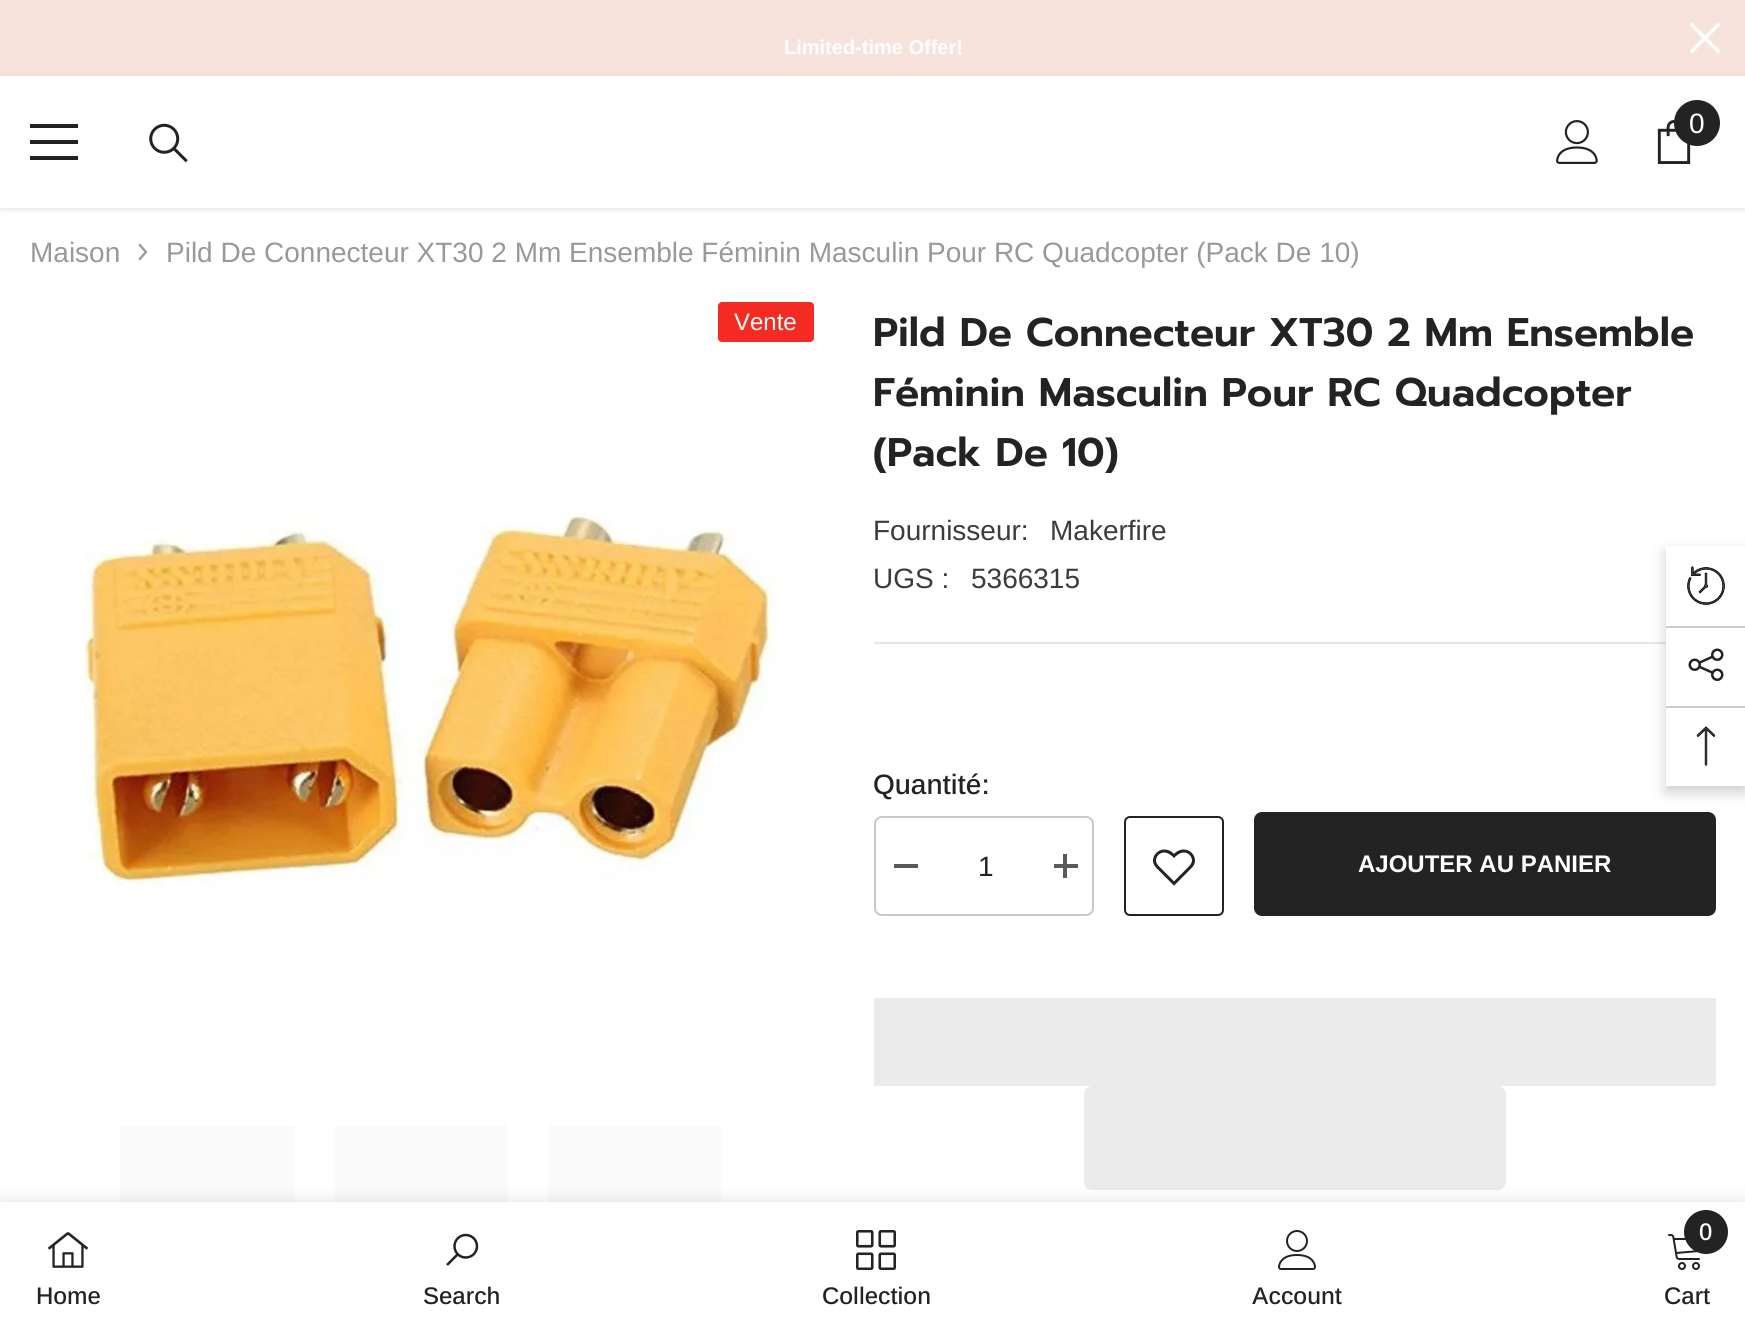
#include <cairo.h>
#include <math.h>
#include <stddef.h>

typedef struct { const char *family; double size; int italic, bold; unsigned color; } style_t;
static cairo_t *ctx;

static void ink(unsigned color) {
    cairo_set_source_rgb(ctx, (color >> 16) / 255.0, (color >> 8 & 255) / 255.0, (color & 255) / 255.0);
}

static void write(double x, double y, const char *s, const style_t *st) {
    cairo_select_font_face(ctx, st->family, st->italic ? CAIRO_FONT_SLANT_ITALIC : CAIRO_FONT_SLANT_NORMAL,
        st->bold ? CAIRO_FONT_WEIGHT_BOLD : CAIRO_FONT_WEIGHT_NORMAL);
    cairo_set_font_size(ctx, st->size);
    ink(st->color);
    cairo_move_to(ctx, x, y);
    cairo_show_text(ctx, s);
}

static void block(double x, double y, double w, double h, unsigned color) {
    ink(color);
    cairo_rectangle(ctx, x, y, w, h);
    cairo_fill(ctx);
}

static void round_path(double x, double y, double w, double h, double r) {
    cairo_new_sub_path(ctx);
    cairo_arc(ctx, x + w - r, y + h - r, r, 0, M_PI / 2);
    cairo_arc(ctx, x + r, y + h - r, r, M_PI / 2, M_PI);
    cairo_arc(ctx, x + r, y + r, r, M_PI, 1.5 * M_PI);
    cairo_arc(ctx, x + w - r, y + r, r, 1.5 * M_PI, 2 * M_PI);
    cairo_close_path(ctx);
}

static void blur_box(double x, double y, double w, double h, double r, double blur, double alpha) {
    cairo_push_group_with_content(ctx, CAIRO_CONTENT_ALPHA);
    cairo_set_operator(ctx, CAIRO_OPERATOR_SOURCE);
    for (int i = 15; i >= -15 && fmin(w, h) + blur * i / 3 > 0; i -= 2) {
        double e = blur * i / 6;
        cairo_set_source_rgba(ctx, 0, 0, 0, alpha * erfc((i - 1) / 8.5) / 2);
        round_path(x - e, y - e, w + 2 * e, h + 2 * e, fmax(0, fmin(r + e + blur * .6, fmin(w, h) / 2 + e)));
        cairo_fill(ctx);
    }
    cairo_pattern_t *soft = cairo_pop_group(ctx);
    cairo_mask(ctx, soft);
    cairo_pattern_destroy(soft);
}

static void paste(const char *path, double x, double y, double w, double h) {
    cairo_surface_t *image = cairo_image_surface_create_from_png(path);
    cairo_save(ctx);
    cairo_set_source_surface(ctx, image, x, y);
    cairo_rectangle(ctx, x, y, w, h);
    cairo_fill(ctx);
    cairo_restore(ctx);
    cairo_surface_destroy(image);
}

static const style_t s1 = {"Arimo", 20, 0, 1, 0xffffff};
static const style_t s2 = {"Arimo", 28, 0, 0, 0xffffff};
static const style_t s3 = {"Arimo", 28, 0, 0, 0x999999};
static const style_t s4 = {"Arimo", 24, 0, 0, 0xffffff};
static const style_t s5 = {"Prompt SemiBold", 40, 0, 0, 0x232323};
static const style_t s6 = {"Arimo", 28, 0, 0, 0x3c3c3c};
static const style_t s7 = {"Arimo Medium", 28, 0, 0, 0x232323};
static const style_t s8 = {"Arimo", 28, 0, 0, 0x232323};
static const style_t s9 = {"Arimo", 24, 0, 1, 0xffffff};
static const style_t s10 = {"Arimo Medium", 24, 0, 0, 0x232323};
static const style_t s11 = {"Arimo Medium", 24, 0, 0, 0xffffff};

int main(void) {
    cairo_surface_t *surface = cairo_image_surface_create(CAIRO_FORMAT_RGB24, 1745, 1329);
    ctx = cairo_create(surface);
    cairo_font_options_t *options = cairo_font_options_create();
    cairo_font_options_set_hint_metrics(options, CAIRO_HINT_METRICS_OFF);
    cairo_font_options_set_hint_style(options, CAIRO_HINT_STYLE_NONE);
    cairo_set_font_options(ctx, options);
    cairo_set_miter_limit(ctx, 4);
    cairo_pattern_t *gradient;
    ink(0xf7e3dc);
    cairo_paint(ctx);
    write(784, 54, "Limited-time Offer!", &s1);
    paste("pic1.png", 1690, 23, 30, 30);
    block(0, 208, 1745, 994, 0xffffff);
    ink(0x000000);
    blur_box(0, 78, 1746, 132, 0, 3, 0.1);
    block(0, 76, 1745, 132, 0xffffff);
    block(30, 140, 48, 4, 0x232323);
    block(30, 124, 48, 4, 0x232323);
    block(30, 156, 48, 4, 0x232323);
    paste("pic2.png", 149, 123, 39, 40);
    paste("pic3.png", 1556, 120, 42, 44);
    paste("pic4.png", 1657, 120, 34, 44);
    cairo_arc(ctx, 1697, 123, 23, 0, 2 * M_PI);
    cairo_fill(ctx);
    write(1689, 133, "0", &s2);
    write(30, 262, "Maison", &s3);
    paste("pic5.png", 138, 243, 10, 18);
    write(166, 262, "Pild De Connecteur XT30 2 Mm Ensemble Féminin Masculin Pour RC Quadcopter (Pack De 10)", &s3);
    ink(0xf42b23);
    round_path(718, 302, 96, 40, 4);
    cairo_fill(ctx);
    write(734, 330, "Vente", &s4);
    paste("pic6.png", 83, 510, 694, 378);
    gradient = cairo_pattern_create_linear(-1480, 1254, 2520, 1254);
    cairo_pattern_add_color_stop_rgba(gradient, 0.04, 0.98, 0.98, 0.98, 1);
    cairo_pattern_add_color_stop_rgba(gradient, 0.25, 0.945, 0.949, 0.953, 1);
    cairo_pattern_add_color_stop_rgba(gradient, 0.36, 0.98, 0.98, 0.98, 1);
    cairo_set_source(ctx, gradient);
    cairo_pattern_destroy(gradient);
    cairo_rectangle(ctx, 120, 1126, 174, 76);
    cairo_fill(ctx);
    gradient = cairo_pattern_create_linear(-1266, 1254, 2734, 1254);
    cairo_pattern_add_color_stop_rgba(gradient, 0.04, 0.98, 0.98, 0.98, 1);
    cairo_pattern_add_color_stop_rgba(gradient, 0.25, 0.945, 0.949, 0.953, 1);
    cairo_pattern_add_color_stop_rgba(gradient, 0.36, 0.98, 0.98, 0.98, 1);
    cairo_set_source(ctx, gradient);
    cairo_pattern_destroy(gradient);
    cairo_rectangle(ctx, 334, 1126, 174, 76);
    cairo_fill(ctx);
    gradient = cairo_pattern_create_linear(-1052, 1254, 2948, 1254);
    cairo_pattern_add_color_stop_rgba(gradient, 0.04, 0.98, 0.98, 0.98, 1);
    cairo_pattern_add_color_stop_rgba(gradient, 0.25, 0.945, 0.949, 0.953, 1);
    cairo_pattern_add_color_stop_rgba(gradient, 0.36, 0.98, 0.98, 0.98, 1);
    cairo_set_source(ctx, gradient);
    cairo_pattern_destroy(gradient);
    cairo_rectangle(ctx, 548, 1126, 174, 76);
    cairo_fill(ctx);
    write(873, 346, "Pild De Connecteur XT30 2 Mm Ensemble", &s5);
    write(873, 406, "Féminin Masculin Pour RC Quadcopter", &s5);
    write(873, 466, "(Pack De 10)", &s5);
    block(874, 642, 792, 2, 0xe6e6e6);
    write(873, 540, "Fournisseur:", &s6);
    write(1050, 540, "Makerfire", &s6);
    write(873, 588, "UGS :", &s6);
    write(971, 588, "5366315", &s6);
    write(873, 794, "Quantité:", &s7);
    round_path(875, 817, 218, 98, 7);
    ink(0xc7c7c7);
    cairo_stroke(ctx);
    block(894, 864, 24, 4, 0x5a5a5a);
    write(978, 876, "1", &s8);
    block(1054, 864, 24, 4, 0x5a5a5a);
    block(1063, 854, 4, 24, 0x5a5a5a);
    round_path(1125, 817, 98, 98, 5);
    ink(0x232323);
    cairo_stroke(ctx);
    paste("pic7.png", 1153, 849, 42, 37);
    round_path(1255, 813, 460, 102, 7);
    cairo_fill_preserve(ctx);
    cairo_stroke(ctx);
    write(1358, 872, "AJOUTER AU PANIER", &s9);
    block(874, 998, 842, 88, 0xebebeb);
    round_path(1084, 1086, 422, 104, 8);
    cairo_fill(ctx);
    ink(0x000000);
    blur_box(0, 1202, 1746, 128, 0, 9, 0.12);
    block(0, 1202, 1745, 127, 0xffffff);
    paste("pic8.png", 48, 1232, 40, 36);
    write(36, 1304, "Home", &s10);
    paste("pic9.png", 446, 1233, 33, 33);
    write(423, 1304, "Search", &s10);
    paste("pic10.png", 856, 1230, 40, 40);
    write(822, 1304, "Collection", &s10);
    paste("pic11.png", 1278, 1230, 38, 40);
    write(1252, 1304, "Account", &s10);
    paste("pic12.png", 1668, 1234, 32, 36);
    cairo_arc(ctx, 1706, 1232, 22, 0, 2 * M_PI);
    cairo_fill(ctx);
    write(1699, 1240, "0", &s11);
    write(1664, 1304, "Cart", &s10);
    ink(0x000000);
    blur_box(1666, 552, 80, 240, 0, 7, 0.2);
    block(1666, 546, 79, 240, 0xffffff);
    paste("pic13.png", 1687, 566, 38, 39);
    block(1666, 626, 79, 2, 0xcccccc);
    paste("pic14.png", 1688, 648, 36, 33);
    block(1666, 706, 79, 2, 0xcccccc);
    paste("pic15.png", 1696, 726, 20, 40);
    cairo_surface_write_to_png(surface, "screenshot.png");
    cairo_font_options_destroy(options);
    cairo_destroy(ctx);
    cairo_surface_destroy(surface);
    return 0;
}
